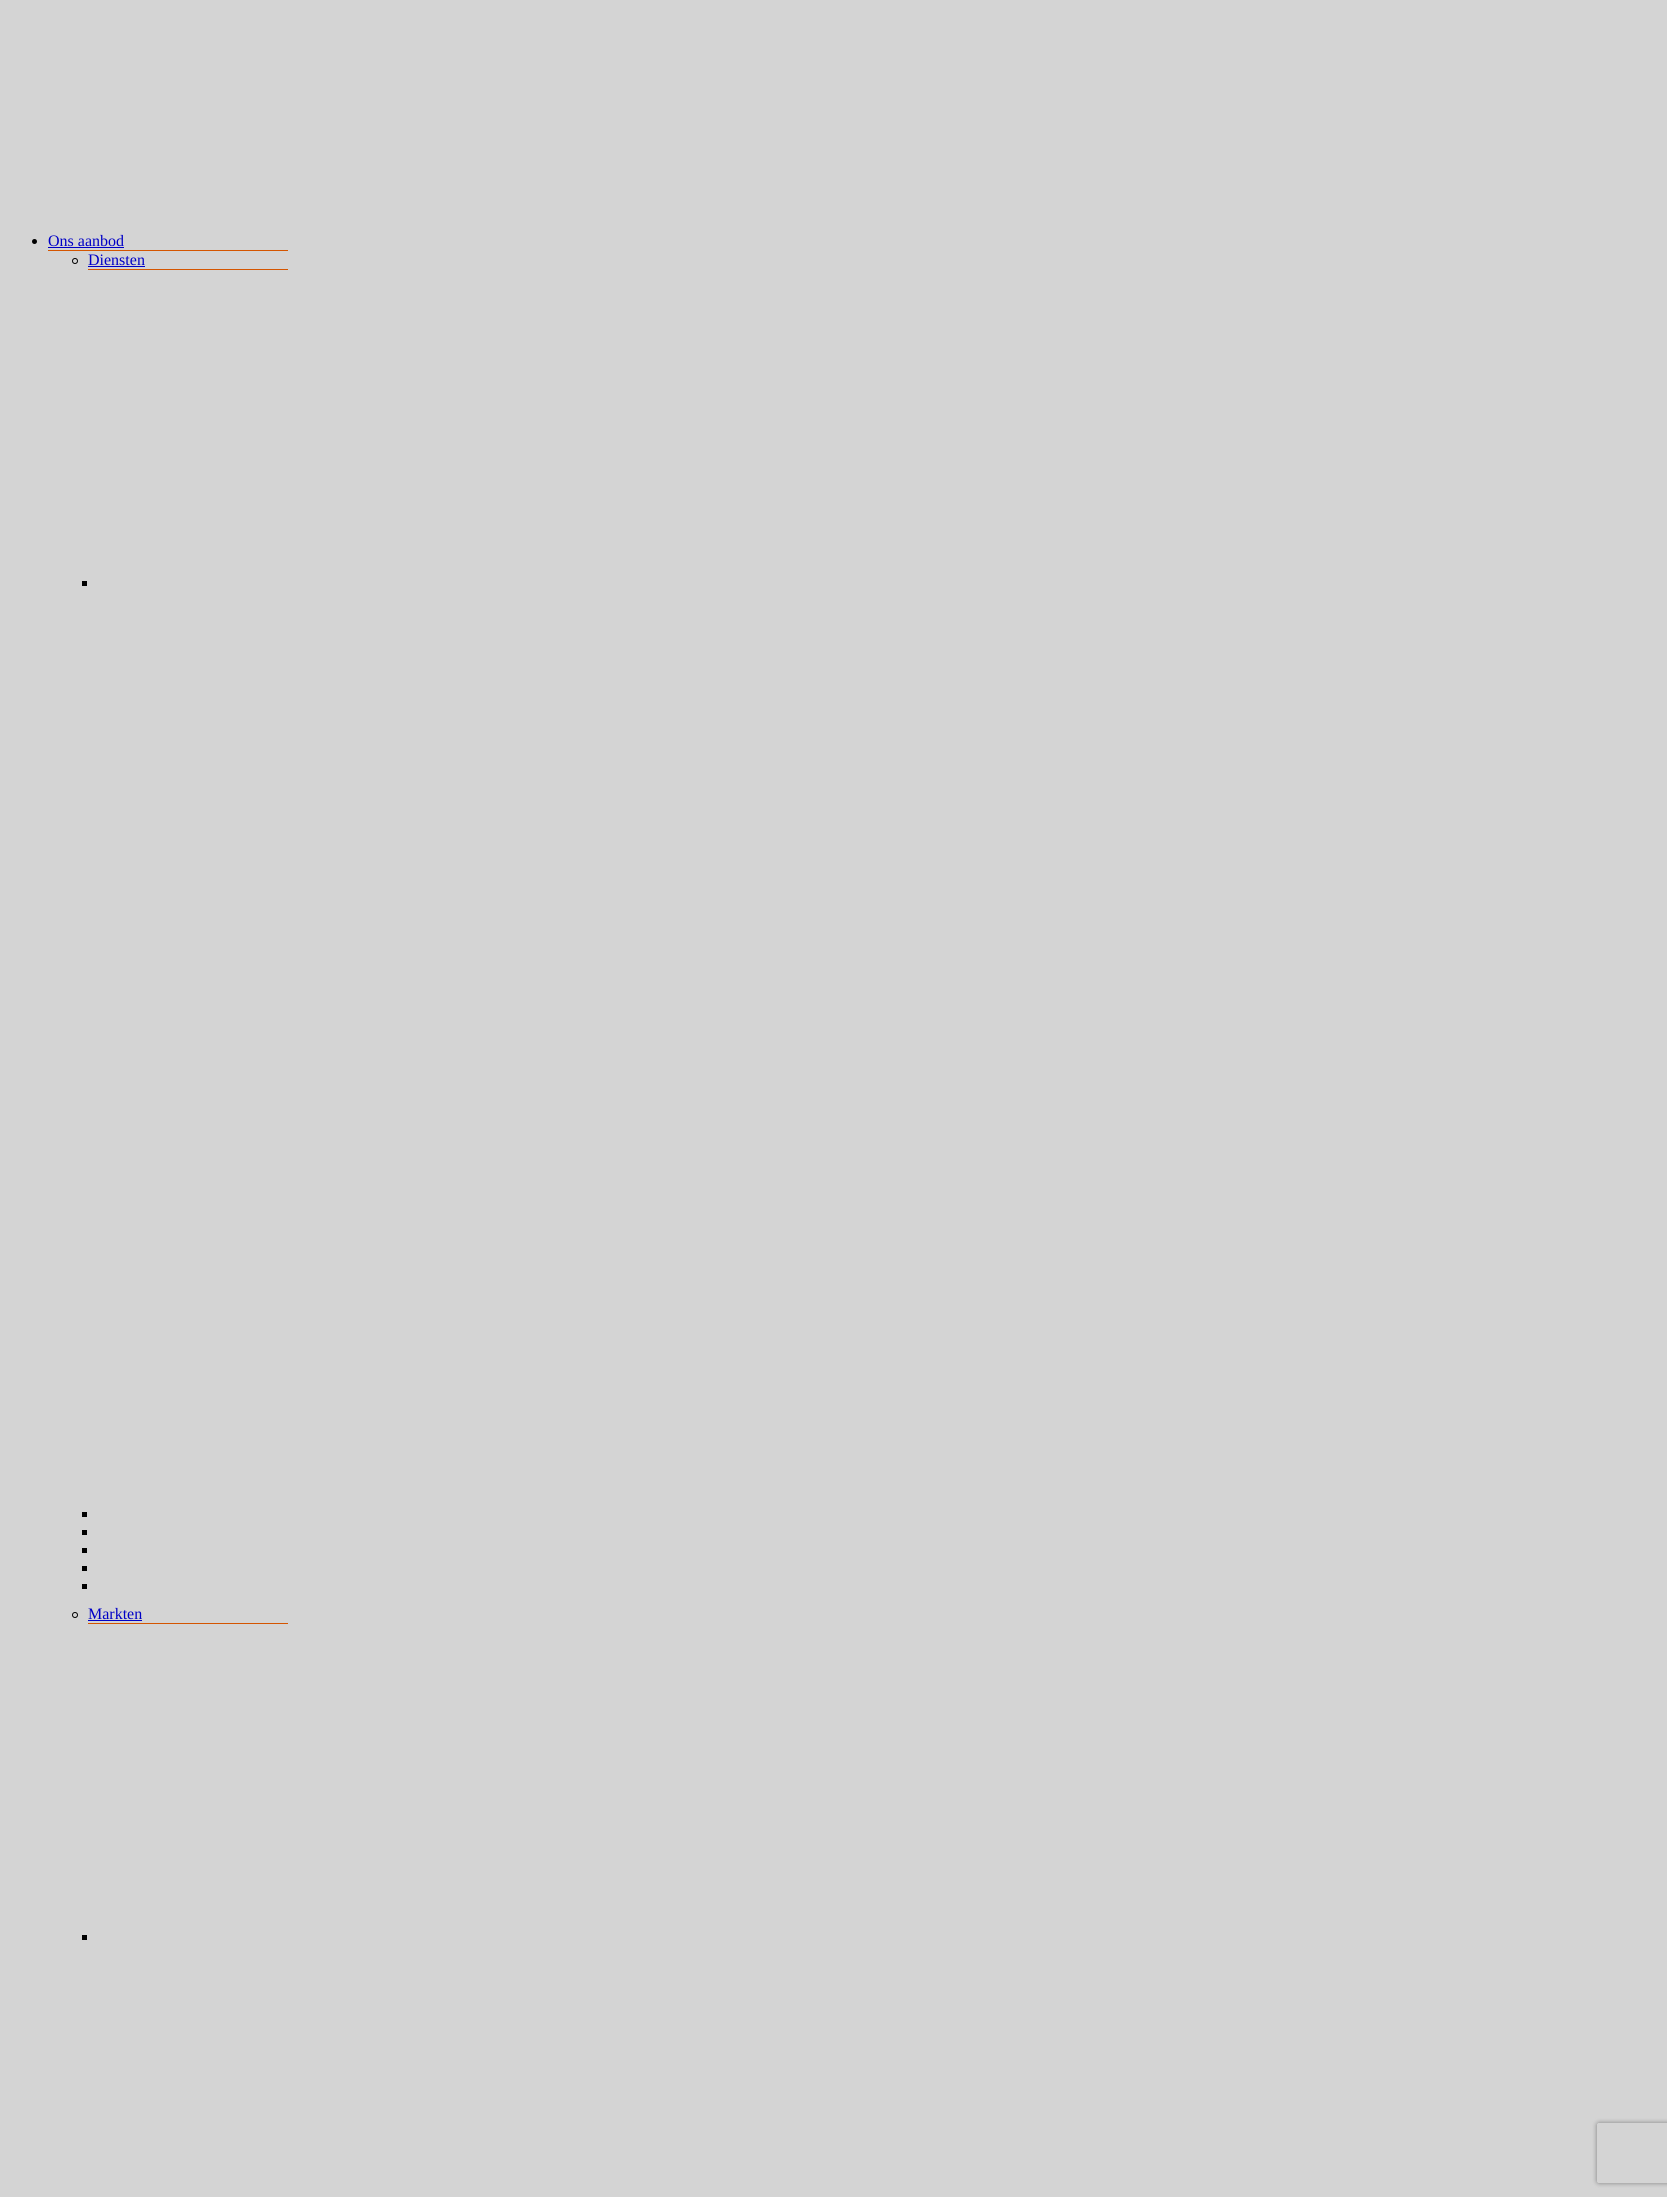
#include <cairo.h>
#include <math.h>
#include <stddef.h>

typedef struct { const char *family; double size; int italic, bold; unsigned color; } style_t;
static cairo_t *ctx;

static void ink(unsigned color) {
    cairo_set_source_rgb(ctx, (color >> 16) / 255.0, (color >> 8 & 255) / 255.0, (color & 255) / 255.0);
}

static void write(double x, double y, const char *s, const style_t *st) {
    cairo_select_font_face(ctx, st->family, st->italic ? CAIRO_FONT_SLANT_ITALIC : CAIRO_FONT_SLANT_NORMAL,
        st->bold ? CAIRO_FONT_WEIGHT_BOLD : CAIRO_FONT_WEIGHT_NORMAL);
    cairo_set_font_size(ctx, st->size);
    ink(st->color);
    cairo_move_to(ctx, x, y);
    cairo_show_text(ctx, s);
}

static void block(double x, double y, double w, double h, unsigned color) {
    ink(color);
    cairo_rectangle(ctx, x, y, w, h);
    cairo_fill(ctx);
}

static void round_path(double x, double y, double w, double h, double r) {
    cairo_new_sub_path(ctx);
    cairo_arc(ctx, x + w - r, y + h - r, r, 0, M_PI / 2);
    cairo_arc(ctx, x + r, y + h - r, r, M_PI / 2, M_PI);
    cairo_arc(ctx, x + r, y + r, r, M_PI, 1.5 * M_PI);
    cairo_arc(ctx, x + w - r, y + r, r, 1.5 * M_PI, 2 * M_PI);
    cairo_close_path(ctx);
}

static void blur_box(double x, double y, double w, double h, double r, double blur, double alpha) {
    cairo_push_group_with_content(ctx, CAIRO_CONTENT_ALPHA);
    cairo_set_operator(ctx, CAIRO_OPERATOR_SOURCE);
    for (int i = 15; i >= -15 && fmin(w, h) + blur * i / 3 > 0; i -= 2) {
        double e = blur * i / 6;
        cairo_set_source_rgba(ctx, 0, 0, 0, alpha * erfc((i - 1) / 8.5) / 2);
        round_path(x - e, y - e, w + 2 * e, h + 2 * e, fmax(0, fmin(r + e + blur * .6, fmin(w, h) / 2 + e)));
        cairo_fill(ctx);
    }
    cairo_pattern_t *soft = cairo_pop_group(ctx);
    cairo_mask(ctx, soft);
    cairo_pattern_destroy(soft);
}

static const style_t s1 = {"Liberation Serif", 16, 0, 0, 0x0000c6};

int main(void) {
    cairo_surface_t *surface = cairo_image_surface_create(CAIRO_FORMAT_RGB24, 1667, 2197);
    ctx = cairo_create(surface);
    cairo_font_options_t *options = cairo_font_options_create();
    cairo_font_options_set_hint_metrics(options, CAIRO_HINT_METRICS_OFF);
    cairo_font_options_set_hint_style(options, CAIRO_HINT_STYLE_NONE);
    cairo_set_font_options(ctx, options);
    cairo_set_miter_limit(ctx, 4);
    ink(0xd4d4d4);
    cairo_paint(ctx);
    ink(0x000000);
    cairo_arc(ctx, 34.5, 241.5, 2.5, 0, 2 * M_PI);
    cairo_fill(ctx);
    write(48, 246, "Ons aanbod", &s1);
    block(48, 247, 76, 1, 0x0000c6);
    block(48, 250, 240, 1, 0xd45500);
    cairo_new_path(ctx);
    cairo_arc(ctx, 75, 261, 2.5, 0, 2 * M_PI);
    ink(0x000000);
    cairo_set_line_width(ctx, 1);
    cairo_stroke(ctx);
    write(88, 265, "Diensten", &s1);
    block(88, 266, 57, 1, 0x0000c6);
    block(88, 269, 200, 1, 0xd45500);
    block(82, 581, 5, 5, 0x000000);
    block(82, 1512, 5, 5, 0x000000);
    block(82, 1530, 5, 5, 0x000000);
    block(82, 1548, 5, 5, 0x000000);
    block(82, 1566, 5, 5, 0x000000);
    block(82, 1584, 5, 5, 0x000000);
    cairo_new_path(ctx);
    cairo_arc(ctx, 75, 1615, 2.5, 0, 2 * M_PI);
    cairo_stroke(ctx);
    write(88, 1619, "Markten", &s1);
    block(88, 1620, 54, 1, 0x0000c6);
    block(88, 1623, 200, 1, 0xd45500);
    block(82, 1935, 5, 5, 0x000000);
    cairo_save(ctx);
    cairo_set_fill_rule(ctx, CAIRO_FILL_RULE_EVEN_ODD);
    cairo_new_path(ctx);
    cairo_move_to(ctx, 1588, 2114);
    cairo_line_to(ctx, 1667, 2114);
    cairo_line_to(ctx, 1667, 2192);
    cairo_line_to(ctx, 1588, 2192);
    cairo_close_path(ctx);
    cairo_move_to(ctx, 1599, 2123);
    cairo_line_to(ctx, 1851, 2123);
    cairo_curve_to(ctx, 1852, 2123, 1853, 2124, 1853, 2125);
    cairo_line_to(ctx, 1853, 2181);
    cairo_curve_to(ctx, 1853, 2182, 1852, 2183, 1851, 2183);
    cairo_line_to(ctx, 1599, 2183);
    cairo_curve_to(ctx, 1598, 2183, 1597, 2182, 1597, 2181);
    cairo_line_to(ctx, 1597, 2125);
    cairo_curve_to(ctx, 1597, 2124, 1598, 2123, 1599, 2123);
    cairo_close_path(ctx);
    cairo_clip(ctx);
    ink(0x808080);
    blur_box(1597, 2123, 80, 60, 2, 2.5, 1);
    cairo_restore(ctx);
    cairo_surface_write_to_png(surface, "screenshot.png");
    cairo_font_options_destroy(options);
    cairo_destroy(ctx);
    cairo_surface_destroy(surface);
    return 0;
}
